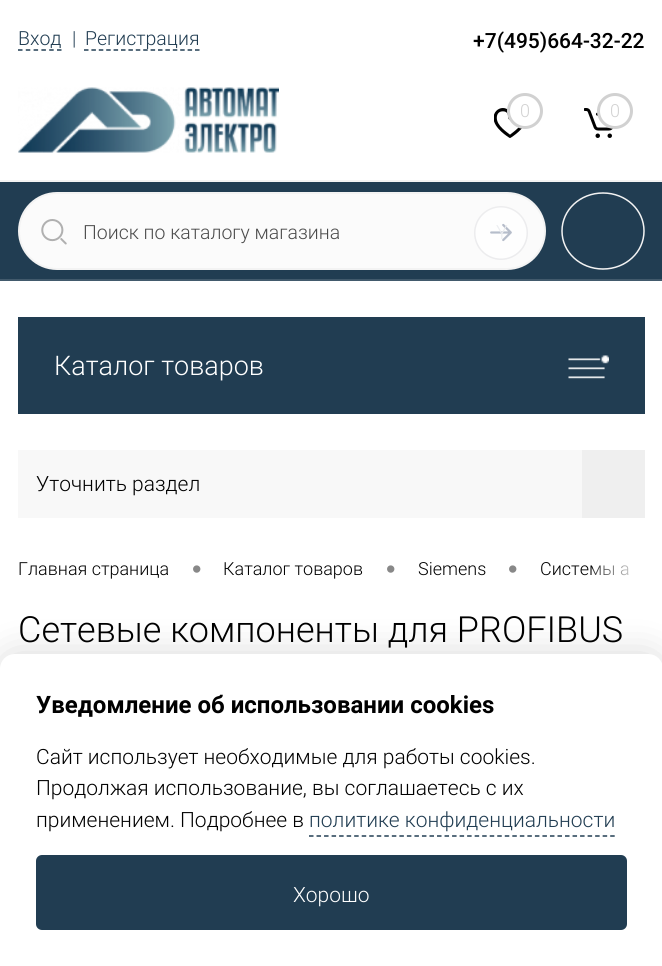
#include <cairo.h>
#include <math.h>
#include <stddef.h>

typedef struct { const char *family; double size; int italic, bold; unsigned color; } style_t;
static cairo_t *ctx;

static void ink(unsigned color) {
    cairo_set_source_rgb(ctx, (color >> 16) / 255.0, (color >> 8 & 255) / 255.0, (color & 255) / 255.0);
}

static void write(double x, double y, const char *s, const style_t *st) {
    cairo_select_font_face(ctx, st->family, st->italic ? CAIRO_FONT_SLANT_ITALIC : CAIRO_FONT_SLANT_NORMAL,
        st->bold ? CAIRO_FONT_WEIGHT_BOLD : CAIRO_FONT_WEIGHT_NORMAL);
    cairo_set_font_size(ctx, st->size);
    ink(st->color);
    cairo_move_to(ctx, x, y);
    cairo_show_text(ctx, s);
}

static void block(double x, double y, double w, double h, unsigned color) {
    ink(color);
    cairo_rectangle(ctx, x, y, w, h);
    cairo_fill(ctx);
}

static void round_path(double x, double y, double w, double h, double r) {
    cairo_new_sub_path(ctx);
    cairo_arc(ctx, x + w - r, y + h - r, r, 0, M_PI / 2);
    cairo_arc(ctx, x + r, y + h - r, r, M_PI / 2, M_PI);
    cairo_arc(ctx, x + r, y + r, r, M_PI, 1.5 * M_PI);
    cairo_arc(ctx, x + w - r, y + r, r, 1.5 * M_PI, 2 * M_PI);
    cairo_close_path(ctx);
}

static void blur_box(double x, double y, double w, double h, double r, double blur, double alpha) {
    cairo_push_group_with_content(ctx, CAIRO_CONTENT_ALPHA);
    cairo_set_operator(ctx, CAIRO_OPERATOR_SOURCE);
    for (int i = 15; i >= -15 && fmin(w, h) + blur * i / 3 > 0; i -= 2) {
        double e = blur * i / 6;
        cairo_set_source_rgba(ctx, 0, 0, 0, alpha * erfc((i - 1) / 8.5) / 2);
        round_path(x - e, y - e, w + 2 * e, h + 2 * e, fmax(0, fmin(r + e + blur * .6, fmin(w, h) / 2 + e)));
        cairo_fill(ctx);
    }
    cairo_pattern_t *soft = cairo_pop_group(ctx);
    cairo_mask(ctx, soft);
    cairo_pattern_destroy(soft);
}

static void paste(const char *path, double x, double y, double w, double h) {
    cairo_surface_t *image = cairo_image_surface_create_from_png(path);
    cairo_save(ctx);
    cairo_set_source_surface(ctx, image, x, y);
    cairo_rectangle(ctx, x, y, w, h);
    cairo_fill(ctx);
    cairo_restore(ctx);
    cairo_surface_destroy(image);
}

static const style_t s1 = {"Roboto Light", 19.5, 0, 0, 0x213d52};
static const style_t s2 = {"Roboto Light", 19.5, 0, 0, 0x4b4b4b};
static const style_t s3 = {"Roboto Light", 19.5, 0, 0, 0xebedf0};
static const style_t s4 = {"Roboto Medium", 21, 0, 0, 0x000000};
static const style_t s5 = {"Roboto Light", 18, 0, 0, 0xd1d1d1};
static const style_t s6 = {"Roboto Light", 27, 0, 0, 0xffffff};
static const style_t s7 = {"Roboto Light", 21, 0, 0, 0x000000};
static const style_t s8 = {"Roboto Light", 18, 0, 0, 0x000000};
static const style_t s9 = {"Liberation Sans", 27, 0, 0, 0x888888};
static const style_t s10 = {"Roboto Light", 36, 0, 0, 0x000000};
static const style_t s11 = {"Roboto", 24, 0, 1, 0x000000};
static const style_t s12 = {"Roboto Light", 21, 0, 0, 0x213d52};
static const style_t s13 = {"Roboto Light", 21, 0, 0, 0xffffff};

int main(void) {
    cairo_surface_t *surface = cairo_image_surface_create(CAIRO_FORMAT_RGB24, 662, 966);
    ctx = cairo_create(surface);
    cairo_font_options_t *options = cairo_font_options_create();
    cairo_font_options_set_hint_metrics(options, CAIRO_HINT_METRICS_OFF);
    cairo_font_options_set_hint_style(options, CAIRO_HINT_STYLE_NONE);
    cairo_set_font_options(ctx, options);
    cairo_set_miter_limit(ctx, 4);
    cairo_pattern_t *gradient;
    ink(0xffffff);
    cairo_paint(ctx);
    block(0, 180, 662, 2, 0xf3f3f3);
    write(18, 45, "Вход", &s1);
    cairo_new_path(ctx);
    cairo_move_to(ctx, 18, 50);
    cairo_line_to(ctx, 61.5, 50);
    cairo_set_line_width(ctx, 1.5);
    cairo_set_dash(ctx, (double[]){4.5, 3.3}, 2, 0);
    cairo_stroke(ctx);
    write(72, 45, "|", &s1);
    write(85, 45, "Регистрация", &s1);
    cairo_new_path(ctx);
    cairo_move_to(ctx, 84, 50);
    cairo_line_to(ctx, 199.5, 50);
    cairo_set_dash(ctx, (double[]){4.5, 2.9}, 2, 0);
    cairo_stroke(ctx);
    block(0, 182, 662, 97, 0x213d52);
    ink(0xfbfbfb);
    round_path(19, 193, 526, 76, 38);
    cairo_fill_preserve(ctx);
    ink(0xf3f3f3);
    cairo_set_line_width(ctx, 2);
    cairo_set_dash(ctx, NULL, 0, 0);
    cairo_stroke(ctx);
    paste("pic1.png", 41, 219, 26, 26);
    write(83, 239, "Поиск по каталогу магазина", &s2);
    paste("pic2.png", 474, 206, 54, 54);
    write(496, 239, "Y", &s3);
    write(473, 48, "+7(495)664-32-22", &s4);
    paste("pic3.png", 494, 108, 28, 30);
    ink(0xffffff);
    cairo_arc(ctx, 525, 111, 16.5, 0, 2 * M_PI);
    cairo_fill_preserve(ctx);
    ink(0xd1d1d1);
    cairo_set_line_width(ctx, 3);
    cairo_stroke(ctx);
    write(520, 117, "0", &s5);
    paste("pic4.png", 584, 108, 29, 30);
    ink(0xffffff);
    cairo_arc(ctx, 615, 111, 16.5, 0, 2 * M_PI);
    cairo_fill_preserve(ctx);
    ink(0xd1d1d1);
    cairo_stroke(ctx);
    write(610, 117, "0", &s5);
    paste("pic5.png", 18, 87, 261, 66);
    block(0, 279, 662, 2, 0x425a6c);
    cairo_new_path(ctx);
    cairo_move_to(ctx, 603, 193);
    cairo_curve_to(ctx, 626, 193, 644, 210, 644, 231);
    cairo_curve_to(ctx, 644, 252, 626, 269, 603, 269);
    cairo_curve_to(ctx, 580, 269, 562, 252, 562, 231);
    cairo_curve_to(ctx, 562, 210, 580, 193, 603, 193);
    cairo_close_path(ctx);
    ink(0xf3f3f3);
    cairo_set_line_width(ctx, 1.5);
    cairo_stroke(ctx);
    block(18, 317, 627, 97, 0x213d52);
    write(54, 375, "Каталог товаров", &s6);
    paste("pic6.png", 568, 355, 41, 24);
    block(18, 450, 564, 68, 0xf8f8f8);
    write(36, 491, "Уточнить раздел", &s7);
    block(582, 450, 63, 68, 0xefefef);
    write(18, 575, "Главная страница", &s8);
    write(192, 578, "•", &s9);
    write(223, 575, "Каталог товаров", &s8);
    write(386, 578, "•", &s9);
    write(418, 575, "Siemens", &s8);
    write(508, 578, "•", &s9);
    write(540, 575, "Системы а", &s8);
    gradient = cairo_pattern_create_linear(593, 569, 645, 569);
    cairo_pattern_add_color_stop_rgba(gradient, 0, 1, 1, 1, 0.2);
    cairo_pattern_add_color_stop_rgba(gradient, 1, 1, 1, 1, 1);
    cairo_set_source(ctx, gradient);
    cairo_pattern_destroy(gradient);
    cairo_rectangle(ctx, 593, 565, 36, 11);
    cairo_fill(ctx);
    write(18, 642, "Сетевые компоненты для PROFIBUS", &s10);
    ink(0x000000);
    blur_box(0, 654, 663, 312, 15, 19, 0.15);
    ink(0xffffff);
    cairo_new_path(ctx);
    cairo_move_to(ctx, 15, 654);
    cairo_line_to(ctx, 648, 654);
    cairo_curve_to(ctx, 656.5, 654, 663, 660.5, 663, 669);
    cairo_line_to(ctx, 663, 966);
    cairo_line_to(ctx, 0, 966);
    cairo_line_to(ctx, 0, 669);
    cairo_curve_to(ctx, 0, 660.5, 6.5, 654, 15, 654);
    cairo_close_path(ctx);
    cairo_fill(ctx);
    write(36, 713, "Уведомление об использовании cookies", &s11);
    write(36, 764, "Сайт использует необходимые для работы cookies.", &s7);
    write(36, 795, "Продолжая использование, вы соглашаетесь с их", &s7);
    write(36, 827, "применением. Подробнее в", &s7);
    cairo_new_path(ctx);
    cairo_move_to(ctx, 309, 836);
    cairo_line_to(ctx, 615, 836);
    ink(0x213d52);
    cairo_set_dash(ctx, (double[]){4.5, 3.03}, 2, 0);
    cairo_stroke(ctx);
    write(309, 827, "политике конфиденциальности", &s12);
    round_path(36, 855, 591, 75, 6);
    cairo_fill(ctx);
    write(293, 902, "Хорошо", &s13);
    cairo_surface_write_to_png(surface, "screenshot.png");
    cairo_font_options_destroy(options);
    cairo_destroy(ctx);
    cairo_surface_destroy(surface);
    return 0;
}
